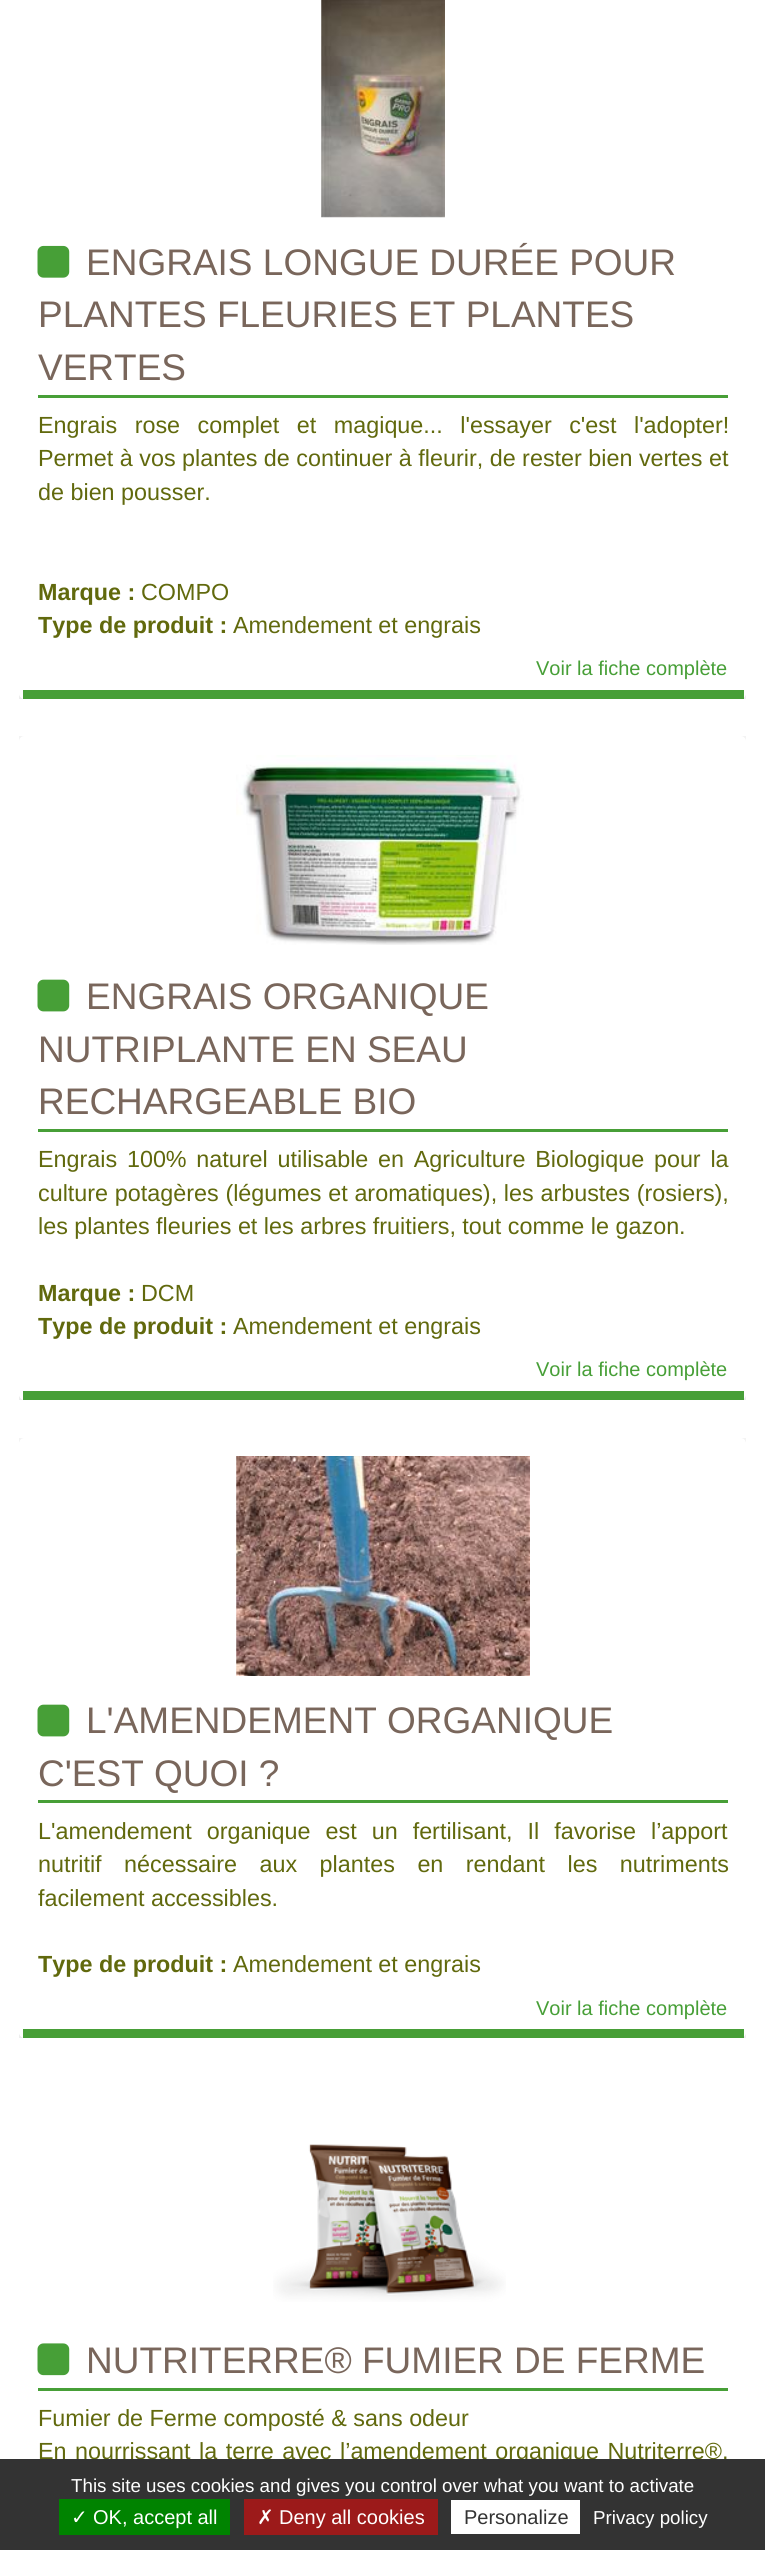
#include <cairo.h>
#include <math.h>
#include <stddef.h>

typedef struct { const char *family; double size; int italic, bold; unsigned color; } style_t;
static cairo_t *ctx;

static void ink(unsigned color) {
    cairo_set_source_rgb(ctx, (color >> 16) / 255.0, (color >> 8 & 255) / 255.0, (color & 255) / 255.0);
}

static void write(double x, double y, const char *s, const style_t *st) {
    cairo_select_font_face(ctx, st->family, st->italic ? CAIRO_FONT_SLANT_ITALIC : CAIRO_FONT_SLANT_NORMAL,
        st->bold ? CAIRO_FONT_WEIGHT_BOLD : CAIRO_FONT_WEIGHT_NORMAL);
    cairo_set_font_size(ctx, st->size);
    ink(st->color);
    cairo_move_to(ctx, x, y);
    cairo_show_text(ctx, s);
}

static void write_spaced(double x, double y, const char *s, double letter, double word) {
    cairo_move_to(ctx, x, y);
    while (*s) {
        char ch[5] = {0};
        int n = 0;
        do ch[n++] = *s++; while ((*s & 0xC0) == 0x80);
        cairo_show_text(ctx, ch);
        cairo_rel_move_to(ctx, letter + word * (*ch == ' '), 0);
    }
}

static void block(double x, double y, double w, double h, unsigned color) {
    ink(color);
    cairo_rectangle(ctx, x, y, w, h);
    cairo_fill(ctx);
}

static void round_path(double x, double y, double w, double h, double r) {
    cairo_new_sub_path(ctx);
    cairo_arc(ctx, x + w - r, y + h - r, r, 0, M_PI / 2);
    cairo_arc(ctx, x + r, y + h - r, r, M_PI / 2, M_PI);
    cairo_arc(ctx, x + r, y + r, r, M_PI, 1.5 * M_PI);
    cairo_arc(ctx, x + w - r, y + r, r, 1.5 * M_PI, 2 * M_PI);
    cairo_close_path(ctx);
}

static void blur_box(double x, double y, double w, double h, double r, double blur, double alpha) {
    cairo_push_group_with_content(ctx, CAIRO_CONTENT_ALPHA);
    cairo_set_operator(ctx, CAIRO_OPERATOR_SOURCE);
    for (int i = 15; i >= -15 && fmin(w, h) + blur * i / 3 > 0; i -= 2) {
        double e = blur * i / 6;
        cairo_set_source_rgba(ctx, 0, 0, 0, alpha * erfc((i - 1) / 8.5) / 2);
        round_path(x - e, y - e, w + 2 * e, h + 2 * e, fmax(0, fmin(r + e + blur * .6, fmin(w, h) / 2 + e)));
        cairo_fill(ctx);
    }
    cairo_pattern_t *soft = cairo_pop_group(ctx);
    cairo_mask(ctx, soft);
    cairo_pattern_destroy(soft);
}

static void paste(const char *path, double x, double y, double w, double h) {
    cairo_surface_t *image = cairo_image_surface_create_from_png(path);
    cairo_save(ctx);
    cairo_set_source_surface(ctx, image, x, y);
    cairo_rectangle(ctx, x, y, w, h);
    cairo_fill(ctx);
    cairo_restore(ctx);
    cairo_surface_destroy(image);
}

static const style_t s1 = {"Liberation Sans", 37, 0, 0, 0x79665b};
static const style_t s2 = {"Liberation Sans", 23.35, 0, 0, 0x61690d};
static const style_t s3 = {"Liberation Sans", 23.35, 0, 1, 0x61690d};
static const style_t s4 = {"Liberation Sans", 20, 0, 0, 0x479f37};
static const style_t s5 = {"Liberation Sans", 18.75, 0, 0, 0xffffff};
static const style_t s6 = {"DejaVu Sans", 20, 0, 0, 0xffffff};
static const style_t s7 = {"Liberation Sans", 20, 0, 0, 0xffffff};
static const style_t s8 = {"Liberation Sans", 20, 0, 0, 0x333333};

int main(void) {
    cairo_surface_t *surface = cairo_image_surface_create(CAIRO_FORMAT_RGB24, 765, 2550);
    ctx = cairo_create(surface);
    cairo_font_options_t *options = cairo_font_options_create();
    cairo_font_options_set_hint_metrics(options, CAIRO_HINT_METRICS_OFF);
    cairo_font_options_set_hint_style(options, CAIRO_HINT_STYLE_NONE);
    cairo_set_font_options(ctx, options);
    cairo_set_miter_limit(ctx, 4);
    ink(0xffffff);
    cairo_paint(ctx);
    cairo_save(ctx);
    cairo_rectangle(ctx, 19, 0, 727, 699);
    cairo_clip(ctx);
    cairo_set_fill_rule(ctx, CAIRO_FILL_RULE_EVEN_ODD);
    cairo_new_path(ctx);
    cairo_move_to(ctx, 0, 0);
    cairo_line_to(ctx, 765, 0);
    cairo_line_to(ctx, 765, 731);
    cairo_line_to(ctx, 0, 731);
    cairo_close_path(ctx);
    cairo_move_to(ctx, 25, -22);
    cairo_line_to(ctx, 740, -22);
    cairo_curve_to(ctx, 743.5, -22, 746, -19.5, 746, -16);
    cairo_line_to(ctx, 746, 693);
    cairo_curve_to(ctx, 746, 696.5, 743.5, 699, 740, 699);
    cairo_line_to(ctx, 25, 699);
    cairo_curve_to(ctx, 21.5, 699, 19, 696.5, 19, 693);
    cairo_line_to(ctx, 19, -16);
    cairo_curve_to(ctx, 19, -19.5, 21.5, -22, 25, -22);
    cairo_close_path(ctx);
    cairo_clip(ctx);
    ink(0x000000);
    blur_box(20, -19, 725, 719, 5, 10, 0.2);
    cairo_restore(ctx);
    block(23, 690, 721, 9, 0x479f37);
    paste("pic1.png", 321, 0, 124, 218);
    block(38, 395, 690, 3, 0x479f37);
    paste("pic2.png", 37, 245, 33, 33);
    write(86, 275, "ENGRAIS LONGUE DURÉE POUR", &s1);
    write(38, 327, "PLANTES FLEURIES ET PLANTES", &s1);
    write(38, 380, "VERTES", &s1);
    cairo_set_font_size(ctx, 23.35);
    ink(0x61690d);
    write_spaced(38, 433, "Engrais rose complet et magique... l'essayer c'est l'adopter!", 0, 11);
    write(38, 466, "Permet à vos plantes de continuer à fleurir, de rester bien vertes et", &s2);
    write(38, 500, "de bien pousser.", &s2);
    write(38, 600, "Marque :", &s3);
    write(141, 600, "COMPO", &s2);
    cairo_save(ctx);
    cairo_rectangle(ctx, 38, 410, 690, 233);
    cairo_clip(ctx);
    write(38, 633, "Type de produit :", &s3);
    cairo_restore(ctx);
    write(233, 633, "Amendement et engrais", &s2);
    write(536, 675, "Voir la fiche complète", &s4);
    cairo_save(ctx);
    cairo_rectangle(ctx, 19, 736, 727, 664);
    cairo_clip(ctx);
    cairo_set_fill_rule(ctx, CAIRO_FILL_RULE_EVEN_ODD);
    cairo_new_path(ctx);
    cairo_move_to(ctx, 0, 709);
    cairo_line_to(ctx, 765, 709);
    cairo_line_to(ctx, 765, 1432);
    cairo_line_to(ctx, 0, 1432);
    cairo_close_path(ctx);
    cairo_move_to(ctx, 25, 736);
    cairo_line_to(ctx, 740, 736);
    cairo_curve_to(ctx, 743.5, 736, 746, 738.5, 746, 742);
    cairo_line_to(ctx, 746, 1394);
    cairo_curve_to(ctx, 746, 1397.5, 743.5, 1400, 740, 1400);
    cairo_line_to(ctx, 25, 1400);
    cairo_curve_to(ctx, 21.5, 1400, 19, 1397.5, 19, 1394);
    cairo_line_to(ctx, 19, 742);
    cairo_curve_to(ctx, 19, 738.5, 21.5, 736, 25, 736);
    cairo_close_path(ctx);
    cairo_clip(ctx);
    ink(0x000000);
    blur_box(20, 740, 725, 661, 5, 10, 0.2);
    cairo_restore(ctx);
    block(23, 1391, 721, 9, 0x479f37);
    paste("pic3.png", 236, 755, 288, 190);
    block(38, 1129, 690, 3, 0x479f37);
    paste("pic4.png", 37, 979, 33, 33);
    write(86, 1009, "ENGRAIS ORGANIQUE", &s1);
    write(38, 1062, "NUTRIPLANTE EN SEAU", &s1);
    write(38, 1114, "RECHARGEABLE BIO", &s1);
    cairo_set_font_size(ctx, 23.35);
    ink(0x61690d);
    write_spaced(38, 1167, "Engrais 100% naturel utilisable en Agriculture Biologique pour la", 0, 3.25);
    write_spaced(38, 1201, "culture potagères (légumes et aromatiques), les arbustes (rosiers),", 0, 0.25);
    write(38, 1234, "les plantes fleuries et les arbres fruitiers, tout comme le gazon.", &s2);
    write(38, 1301, "Marque :", &s3);
    write(141, 1301, "DCM", &s2);
    cairo_save(ctx);
    cairo_rectangle(ctx, 38, 1144, 690, 200);
    cairo_clip(ctx);
    write(38, 1334, "Type de produit :", &s3);
    cairo_restore(ctx);
    write(233, 1334, "Amendement et engrais", &s2);
    write(536, 1376, "Voir la fiche complète", &s4);
    cairo_save(ctx);
    cairo_rectangle(ctx, 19, 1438, 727, 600);
    cairo_clip(ctx);
    cairo_set_fill_rule(ctx, CAIRO_FILL_RULE_EVEN_ODD);
    cairo_new_path(ctx);
    cairo_move_to(ctx, 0, 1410);
    cairo_line_to(ctx, 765, 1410);
    cairo_line_to(ctx, 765, 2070);
    cairo_line_to(ctx, 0, 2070);
    cairo_close_path(ctx);
    cairo_move_to(ctx, 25, 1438);
    cairo_line_to(ctx, 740, 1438);
    cairo_curve_to(ctx, 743.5, 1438, 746, 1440.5, 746, 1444);
    cairo_line_to(ctx, 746, 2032);
    cairo_curve_to(ctx, 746, 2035.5, 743.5, 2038, 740, 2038);
    cairo_line_to(ctx, 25, 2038);
    cairo_curve_to(ctx, 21.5, 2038, 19, 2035.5, 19, 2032);
    cairo_line_to(ctx, 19, 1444);
    cairo_curve_to(ctx, 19, 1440.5, 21.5, 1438, 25, 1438);
    cairo_close_path(ctx);
    cairo_clip(ctx);
    ink(0x000000);
    blur_box(20, 1441, 725, 598, 5, 10, 0.2);
    cairo_restore(ctx);
    block(23, 2029, 721, 9, 0x479f37);
    paste("pic5.png", 236, 1456, 294, 220);
    block(38, 1800, 690, 3, 0x479f37);
    paste("pic4.png", 37, 1704, 33, 33);
    write(86, 1733, "L'AMENDEMENT ORGANIQUE", &s1);
    write(38, 1786, "C'EST QUOI ?", &s1);
    cairo_set_font_size(ctx, 23.35);
    ink(0x61690d);
    write_spaced(38, 1839, "L'amendement organique est un fertilisant, Il favorise l’apport", 0, 8.5);
    write_spaced(38, 1872, "nutritif nécessaire aux plantes en rendant les nutriments", 0, 16);
    write(38, 1906, "facilement accessibles.", &s2);
    cairo_save(ctx);
    cairo_rectangle(ctx, 38, 1815, 690, 168);
    cairo_clip(ctx);
    write(38, 1972, "Type de produit :", &s3);
    cairo_restore(ctx);
    write(233, 1972, "Amendement et engrais", &s2);
    write(536, 2015, "Voir la fiche complète", &s4);
    paste("pic6.png", 273, 2144, 233, 158);
    block(38, 2388, 690, 3, 0x479f37);
    paste("pic7.png", 37, 2343, 33, 33);
    write(86, 2373, "NUTRITERRE® FUMIER DE FERME", &s1);
    write(38, 2426, "Fumier de Ferme composté & sans odeur", &s2);
    write_spaced(38, 2459, "En nourrissant la terre avec l’amendement organique Nutriterre®,", 0, 2);
    block(0, 2459, 765, 91, 0x333333);
    write(71, 2492, "This site uses cookies and gives you control over what you want to activate", &s5);
    block(59, 2499, 171, 36, 0x008300);
    write(71, 2524, "✓", &s6);
    write(93, 2524, "OK, accept all", &s7);
    block(244, 2499, 194, 36, 0x9c1a1a);
    write(257, 2524, "✗", &s6);
    write(279, 2524, "Deny all cookies", &s7);
    block(451, 2500, 129, 34, 0xffffff);
    write(464, 2524, "Personalize", &s8);
    write(593, 2524, "Privacy policy", &s5);
    cairo_surface_write_to_png(surface, "screenshot.png");
    cairo_font_options_destroy(options);
    cairo_destroy(ctx);
    cairo_surface_destroy(surface);
    return 0;
}
